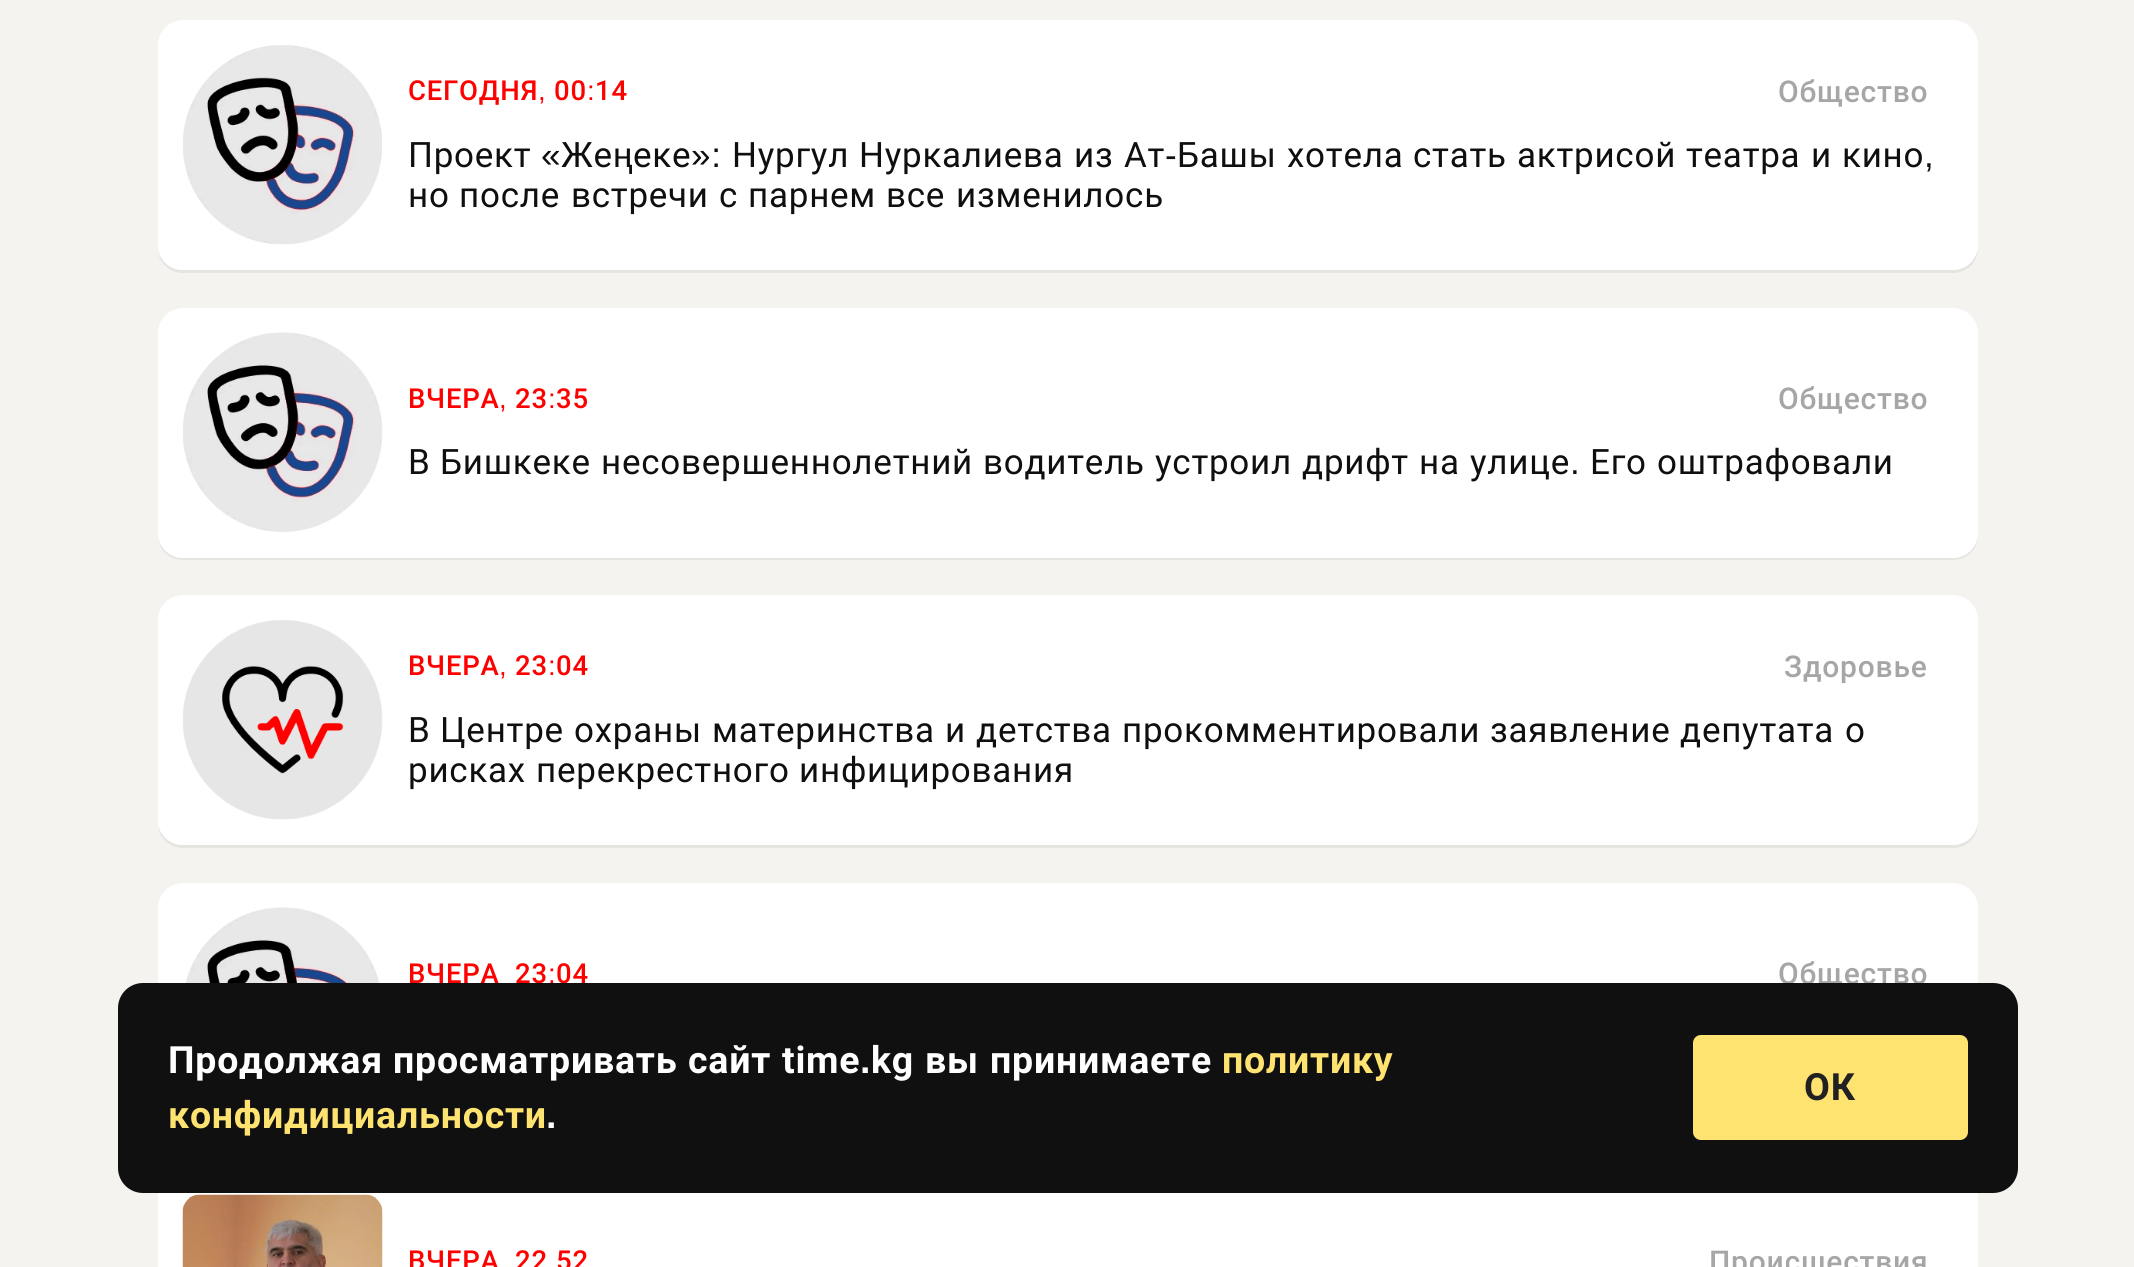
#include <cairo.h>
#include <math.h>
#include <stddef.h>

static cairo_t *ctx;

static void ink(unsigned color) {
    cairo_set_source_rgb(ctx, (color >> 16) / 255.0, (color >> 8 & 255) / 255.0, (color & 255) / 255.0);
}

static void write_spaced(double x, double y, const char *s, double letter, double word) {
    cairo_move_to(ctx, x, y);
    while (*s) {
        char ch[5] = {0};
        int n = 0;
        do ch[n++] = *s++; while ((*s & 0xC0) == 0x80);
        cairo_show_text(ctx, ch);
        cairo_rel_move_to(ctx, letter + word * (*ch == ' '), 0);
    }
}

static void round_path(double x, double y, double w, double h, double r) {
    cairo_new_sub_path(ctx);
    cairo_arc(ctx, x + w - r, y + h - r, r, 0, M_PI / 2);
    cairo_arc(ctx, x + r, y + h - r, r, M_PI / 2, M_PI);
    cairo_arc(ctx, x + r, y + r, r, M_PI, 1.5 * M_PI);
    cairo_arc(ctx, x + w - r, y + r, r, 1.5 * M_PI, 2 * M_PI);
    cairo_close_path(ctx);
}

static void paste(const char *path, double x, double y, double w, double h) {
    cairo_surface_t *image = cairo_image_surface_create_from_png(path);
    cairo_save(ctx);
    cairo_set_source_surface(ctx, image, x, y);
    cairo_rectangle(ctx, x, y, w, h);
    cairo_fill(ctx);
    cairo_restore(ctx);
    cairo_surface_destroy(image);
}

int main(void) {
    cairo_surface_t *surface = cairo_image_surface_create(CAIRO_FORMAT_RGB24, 2134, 1267);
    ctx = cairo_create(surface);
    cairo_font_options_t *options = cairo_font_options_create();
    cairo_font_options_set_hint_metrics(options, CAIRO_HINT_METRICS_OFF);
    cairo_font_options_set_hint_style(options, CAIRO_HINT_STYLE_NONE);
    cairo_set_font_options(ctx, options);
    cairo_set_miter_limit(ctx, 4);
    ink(0xf4f3f0);
    cairo_paint(ctx);
    ink(0xe5e4e1);
    cairo_new_path(ctx);
    cairo_move_to(ctx, 158, 251);
    cairo_curve_to(ctx, 159, 263, 170, 273, 183, 273);
    cairo_line_to(ctx, 1953, 273);
    cairo_curve_to(ctx, 1967, 273, 1978, 262, 1978, 248);
    cairo_line_to(ctx, 1978, 48);
    cairo_line_to(ctx, 1977, 42);
    cairo_line_to(ctx, 1978, 245);
    cairo_curve_to(ctx, 1978, 259, 1966, 270, 1952, 270);
    cairo_line_to(ctx, 182, 270);
    cairo_curve_to(ctx, 171, 270, 161, 262, 158, 251);
    cairo_close_path(ctx);
    cairo_fill(ctx);
    ink(0xffffff);
    round_path(158, 20, 1820, 250, 25);
    cairo_fill(ctx);
    paste("pic1.png", 182, 45, 200, 200);
    cairo_select_font_face(ctx, "Roboto Medium", CAIRO_FONT_SLANT_NORMAL, CAIRO_FONT_WEIGHT_NORMAL);
    cairo_set_font_size(ctx, 27.5);
    ink(0xff0000);
    write_spaced(408, 100, "СЕГОДНЯ", 0.75, 0);
    cairo_select_font_face(ctx, "Liberation Sans", CAIRO_FONT_SLANT_NORMAL, CAIRO_FONT_WEIGHT_NORMAL);
    write_spaced(538, 100, ",", 0.75, 0);
    cairo_select_font_face(ctx, "Roboto Medium", CAIRO_FONT_SLANT_NORMAL, CAIRO_FONT_WEIGHT_NORMAL);
    write_spaced(554, 100, "00", 0.75, 0);
    cairo_select_font_face(ctx, "Liberation Sans", CAIRO_FONT_SLANT_NORMAL, CAIRO_FONT_WEIGHT_NORMAL);
    write_spaced(587, 100, ":", 0.75, 0);
    cairo_select_font_face(ctx, "Roboto Medium", CAIRO_FONT_SLANT_NORMAL, CAIRO_FONT_WEIGHT_NORMAL);
    write_spaced(595, 100, "14", 0.75, 0);
    cairo_set_font_size(ctx, 30);
    ink(0xa6a6a6);
    write_spaced(1778, 102, "Общество", 0.75, 0);
    cairo_select_font_face(ctx, "Roboto", CAIRO_FONT_SLANT_NORMAL, CAIRO_FONT_WEIGHT_NORMAL);
    cairo_set_font_size(ctx, 35);
    ink(0x0f0f10);
    write_spaced(408, 167, "Проект", 0.75, 0);
    cairo_select_font_face(ctx, "Liberation Sans", CAIRO_FONT_SLANT_NORMAL, CAIRO_FONT_WEIGHT_NORMAL);
    write_spaced(541, 167, "«", 0.75, 0);
    cairo_select_font_face(ctx, "Roboto", CAIRO_FONT_SLANT_NORMAL, CAIRO_FONT_WEIGHT_NORMAL);
    write_spaced(561, 167, "Же", 0.75, 0);
    cairo_select_font_face(ctx, "Liberation Sans", CAIRO_FONT_SLANT_NORMAL, CAIRO_FONT_WEIGHT_NORMAL);
    write_spaced(613, 167, "ң", 0.75, 0);
    cairo_select_font_face(ctx, "Roboto", CAIRO_FONT_SLANT_NORMAL, CAIRO_FONT_WEIGHT_NORMAL);
    write_spaced(633, 167, "еке", 0.75, 0);
    cairo_select_font_face(ctx, "Liberation Sans", CAIRO_FONT_SLANT_NORMAL, CAIRO_FONT_WEIGHT_NORMAL);
    write_spaced(691, 167, "»:", 0.75, 0);
    cairo_select_font_face(ctx, "Roboto", CAIRO_FONT_SLANT_NORMAL, CAIRO_FONT_WEIGHT_NORMAL);
    write_spaced(732, 167, "Нургул", 0.75, 0);
    write_spaced(859, 167, "Нуркалиева", 0.75, 0);
    write_spaced(1074, 167, "из", 0.75, 0);
    write_spaced(1124, 167, "Ат", 0.75, 0);
    cairo_select_font_face(ctx, "Liberation Sans", CAIRO_FONT_SLANT_NORMAL, CAIRO_FONT_WEIGHT_NORMAL);
    write_spaced(1165, 167, "-", 0.75, 0);
    cairo_select_font_face(ctx, "Roboto", CAIRO_FONT_SLANT_NORMAL, CAIRO_FONT_WEIGHT_NORMAL);
    write_spaced(1177, 167, "Башы", 0.75, 0);
    write_spaced(1287, 167, "хотела", 0.75, 0);
    write_spaced(1413, 167, "стать", 0.75, 0);
    write_spaced(1517, 167, "актрисой", 0.75, 0);
    write_spaced(1686, 167, "театра", 0.75, 0);
    write_spaced(1811, 167, "и", 0.75, 0);
    write_spaced(1842, 167, "кино", 0.75, 0);
    cairo_select_font_face(ctx, "Liberation Sans", CAIRO_FONT_SLANT_NORMAL, CAIRO_FONT_WEIGHT_NORMAL);
    write_spaced(1924, 167, ",", 0.75, 0);
    cairo_select_font_face(ctx, "Roboto", CAIRO_FONT_SLANT_NORMAL, CAIRO_FONT_WEIGHT_NORMAL);
    write_spaced(408, 207, "но", 0.75, 0);
    write_spaced(459, 207, "после", 0.75, 0);
    write_spaced(571, 207, "встречи", 0.75, 0);
    write_spaced(719, 207, "с", 0.75, 0);
    write_spaced(748, 207, "парнем", 0.75, 0);
    write_spaced(886, 207, "все", 0.75, 0);
    write_spaced(956, 207, "изменилось", 0.75, 0);
    ink(0xe5e4e1);
    cairo_new_path(ctx);
    cairo_move_to(ctx, 158, 539);
    cairo_curve_to(ctx, 160, 551, 170, 560, 183, 560);
    cairo_line_to(ctx, 1953, 560);
    cairo_curve_to(ctx, 1967, 560, 1978, 549, 1978, 535);
    cairo_line_to(ctx, 1978, 335);
    cairo_line_to(ctx, 1977, 329);
    cairo_line_to(ctx, 1978, 532);
    cairo_curve_to(ctx, 1978, 546, 1966, 558, 1952, 558);
    cairo_line_to(ctx, 182, 558);
    cairo_curve_to(ctx, 171, 558, 161, 549, 158, 539);
    cairo_close_path(ctx);
    cairo_fill(ctx);
    ink(0xffffff);
    round_path(158, 308, 1820, 250, 25);
    cairo_fill(ctx);
    paste("pic2.png", 182, 332, 201, 200);
    cairo_select_font_face(ctx, "Roboto Medium", CAIRO_FONT_SLANT_NORMAL, CAIRO_FONT_WEIGHT_NORMAL);
    cairo_set_font_size(ctx, 27.5);
    ink(0xff0000);
    write_spaced(408, 408, "ВЧЕРА", 0.75, 0);
    cairo_select_font_face(ctx, "Liberation Sans", CAIRO_FONT_SLANT_NORMAL, CAIRO_FONT_WEIGHT_NORMAL);
    write_spaced(499, 408, ",", 0.75, 0);
    cairo_select_font_face(ctx, "Roboto Medium", CAIRO_FONT_SLANT_NORMAL, CAIRO_FONT_WEIGHT_NORMAL);
    write_spaced(515, 408, "23", 0.75, 0);
    cairo_select_font_face(ctx, "Liberation Sans", CAIRO_FONT_SLANT_NORMAL, CAIRO_FONT_WEIGHT_NORMAL);
    write_spaced(548, 408, ":", 0.75, 0);
    cairo_select_font_face(ctx, "Roboto Medium", CAIRO_FONT_SLANT_NORMAL, CAIRO_FONT_WEIGHT_NORMAL);
    write_spaced(556, 408, "35", 0.75, 0);
    cairo_set_font_size(ctx, 30);
    ink(0xa6a6a6);
    write_spaced(1778, 409, "Общество", 0.75, 0);
    cairo_select_font_face(ctx, "Roboto", CAIRO_FONT_SLANT_NORMAL, CAIRO_FONT_WEIGHT_NORMAL);
    cairo_set_font_size(ctx, 35);
    ink(0x0f0f10);
    write_spaced(408, 474, "В", 0.75, 0);
    write_spaced(440, 474, "Бишкеке", 0.75, 0);
    write_spaced(601, 474, "несовершеннолетний", 0.75, 0);
    write_spaced(983, 474, "водитель", 0.75, 0);
    write_spaced(1155, 474, "устроил", 0.75, 0);
    write_spaced(1302, 474, "дрифт", 0.75, 0);
    write_spaced(1419, 474, "на", 0.75, 0);
    write_spaced(1470, 474, "улице", 0.75, 0);
    cairo_select_font_face(ctx, "Liberation Sans", CAIRO_FONT_SLANT_NORMAL, CAIRO_FONT_WEIGHT_NORMAL);
    write_spaced(1570, 474, ".", 0.75, 0);
    cairo_select_font_face(ctx, "Roboto", CAIRO_FONT_SLANT_NORMAL, CAIRO_FONT_WEIGHT_NORMAL);
    write_spaced(1590, 474, "Его", 0.75, 0);
    write_spaced(1657, 474, "оштрафовали", 0.75, 0);
    ink(0xe5e4e1);
    cairo_new_path(ctx);
    cairo_move_to(ctx, 158, 826);
    cairo_curve_to(ctx, 159, 838, 170, 848, 183, 848);
    cairo_line_to(ctx, 1953, 848);
    cairo_curve_to(ctx, 1967, 848, 1978, 837, 1978, 823);
    cairo_line_to(ctx, 1978, 623);
    cairo_line_to(ctx, 1977, 617);
    cairo_line_to(ctx, 1978, 820);
    cairo_curve_to(ctx, 1978, 834, 1966, 845, 1952, 845);
    cairo_line_to(ctx, 182, 845);
    cairo_curve_to(ctx, 171, 845, 161, 837, 158, 826);
    cairo_close_path(ctx);
    cairo_fill(ctx);
    ink(0xffffff);
    round_path(158, 595, 1820, 250, 25);
    cairo_fill(ctx);
    paste("pic3.png", 182, 620, 201, 200);
    cairo_select_font_face(ctx, "Roboto Medium", CAIRO_FONT_SLANT_NORMAL, CAIRO_FONT_WEIGHT_NORMAL);
    cairo_set_font_size(ctx, 27.5);
    ink(0xff0000);
    write_spaced(408, 675, "ВЧЕРА", 0.75, 0);
    cairo_select_font_face(ctx, "Liberation Sans", CAIRO_FONT_SLANT_NORMAL, CAIRO_FONT_WEIGHT_NORMAL);
    write_spaced(499, 675, ",", 0.75, 0);
    cairo_select_font_face(ctx, "Roboto Medium", CAIRO_FONT_SLANT_NORMAL, CAIRO_FONT_WEIGHT_NORMAL);
    write_spaced(515, 675, "23", 0.75, 0);
    cairo_select_font_face(ctx, "Liberation Sans", CAIRO_FONT_SLANT_NORMAL, CAIRO_FONT_WEIGHT_NORMAL);
    write_spaced(548, 675, ":", 0.75, 0);
    cairo_select_font_face(ctx, "Roboto Medium", CAIRO_FONT_SLANT_NORMAL, CAIRO_FONT_WEIGHT_NORMAL);
    write_spaced(556, 675, "04", 0.75, 0);
    cairo_set_font_size(ctx, 30);
    ink(0xa6a6a6);
    write_spaced(1784, 677, "Здоровье", 0.75, 0);
    cairo_select_font_face(ctx, "Roboto", CAIRO_FONT_SLANT_NORMAL, CAIRO_FONT_WEIGHT_NORMAL);
    cairo_set_font_size(ctx, 35);
    ink(0x0f0f10);
    write_spaced(408, 742, "В", 0.75, 0);
    write_spaced(440, 742, "Центре", 0.75, 0);
    write_spaced(574, 742, "охраны", 0.75, 0);
    write_spaced(712, 742, "материнства", 0.75, 0);
    write_spaced(945, 742, "и", 0.75, 0);
    write_spaced(976, 742, "детства", 0.75, 0);
    write_spaced(1122, 742, "прокомментировали", 0.75, 0);
    write_spaced(1490, 742, "заявление", 0.75, 0);
    write_spaced(1680, 742, "депутата", 0.75, 0);
    write_spaced(1845, 742, "о", 0.75, 0);
    write_spaced(408, 782, "рисках", 0.75, 0);
    write_spaced(536, 782, "перекрестного", 0.75, 0);
    write_spaced(799, 782, "инфицирования", 0.75, 0);
    ink(0xffffff);
    round_path(158, 883, 1820, 250, 25);
    cairo_fill(ctx);
    paste("pic4.png", 185, 907, 195, 76);
    cairo_select_font_face(ctx, "Roboto Medium", CAIRO_FONT_SLANT_NORMAL, CAIRO_FONT_WEIGHT_NORMAL);
    cairo_set_font_size(ctx, 27.5);
    ink(0xff0000);
    write_spaced(408, 983, "ВЧЕРА", 0.75, 0);
    write_spaced(515, 983, "23", 0.75, 0);
    cairo_select_font_face(ctx, "Liberation Sans", CAIRO_FONT_SLANT_NORMAL, CAIRO_FONT_WEIGHT_NORMAL);
    write_spaced(548, 983, ":", 0.75, 0);
    cairo_select_font_face(ctx, "Roboto Medium", CAIRO_FONT_SLANT_NORMAL, CAIRO_FONT_WEIGHT_NORMAL);
    write_spaced(556, 983, "04", 0.75, 0);
    cairo_set_font_size(ctx, 30);
    ink(0xa6a6a6);
    write_spaced(1778, 984, "Общество", 0.75, 0);
    ink(0xffffff);
    round_path(158, 1170, 1820, 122, 25);
    cairo_fill(ctx);
    paste("pic5.png", 182, 1194, 201, 73);
    cairo_set_font_size(ctx, 27.5);
    ink(0xff0000);
    write_spaced(408, 1270, "ВЧЕРА", 0.75, 0);
    write_spaced(515, 1270, "22", 0.75, 0);
    write_spaced(556, 1270, "52", 0.75, 0);
    cairo_set_font_size(ctx, 30);
    ink(0xa6a6a6);
    write_spaced(1709, 1272, "Происшествия", 0.75, 0);
    ink(0x101010);
    round_path(118, 983, 1900, 210, 25);
    cairo_fill(ctx);
    cairo_select_font_face(ctx, "Roboto", CAIRO_FONT_SLANT_NORMAL, CAIRO_FONT_WEIGHT_BOLD);
    cairo_set_font_size(ctx, 37.5);
    ink(0xffffff);
    write_spaced(168, 1073, "Продолжая", 0.75, 0);
    write_spaced(393, 1073, "просматривать", 0.75, 0);
    write_spaced(688, 1073, "сайт", 0.75, 0);
    write_spaced(782, 1073, "time", 0.75, 0);
    cairo_select_font_face(ctx, "Liberation Sans", CAIRO_FONT_SLANT_NORMAL, CAIRO_FONT_WEIGHT_BOLD);
    write_spaced(860, 1073, ".", 0.75, 0);
    cairo_select_font_face(ctx, "Roboto", CAIRO_FONT_SLANT_NORMAL, CAIRO_FONT_WEIGHT_BOLD);
    write_spaced(871, 1073, "kg", 0.75, 0);
    write_spaced(925, 1073, "вы", 0.75, 0);
    write_spaced(990, 1073, "принимаете", 0.75, 0);
    ink(0xffe371);
    write_spaced(1222, 1073, "политику", 0.75, 0);
    write_spaced(168, 1128, "конфидициальности", 0.75, 0);
    cairo_select_font_face(ctx, "Liberation Sans", CAIRO_FONT_SLANT_NORMAL, CAIRO_FONT_WEIGHT_BOLD);
    ink(0xffffff);
    write_spaced(546, 1128, ".", 0.75, 0);
    ink(0xffe371);
    round_path(1693, 1035, 275, 105, 8);
    cairo_fill(ctx);
    cairo_select_font_face(ctx, "Roboto", CAIRO_FONT_SLANT_NORMAL, CAIRO_FONT_WEIGHT_BOLD);
    ink(0x212121);
    write_spaced(1804, 1100, "ОК", 0.75, 0);
    cairo_surface_write_to_png(surface, "screenshot.png");
    cairo_font_options_destroy(options);
    cairo_destroy(ctx);
    cairo_surface_destroy(surface);
    return 0;
}
